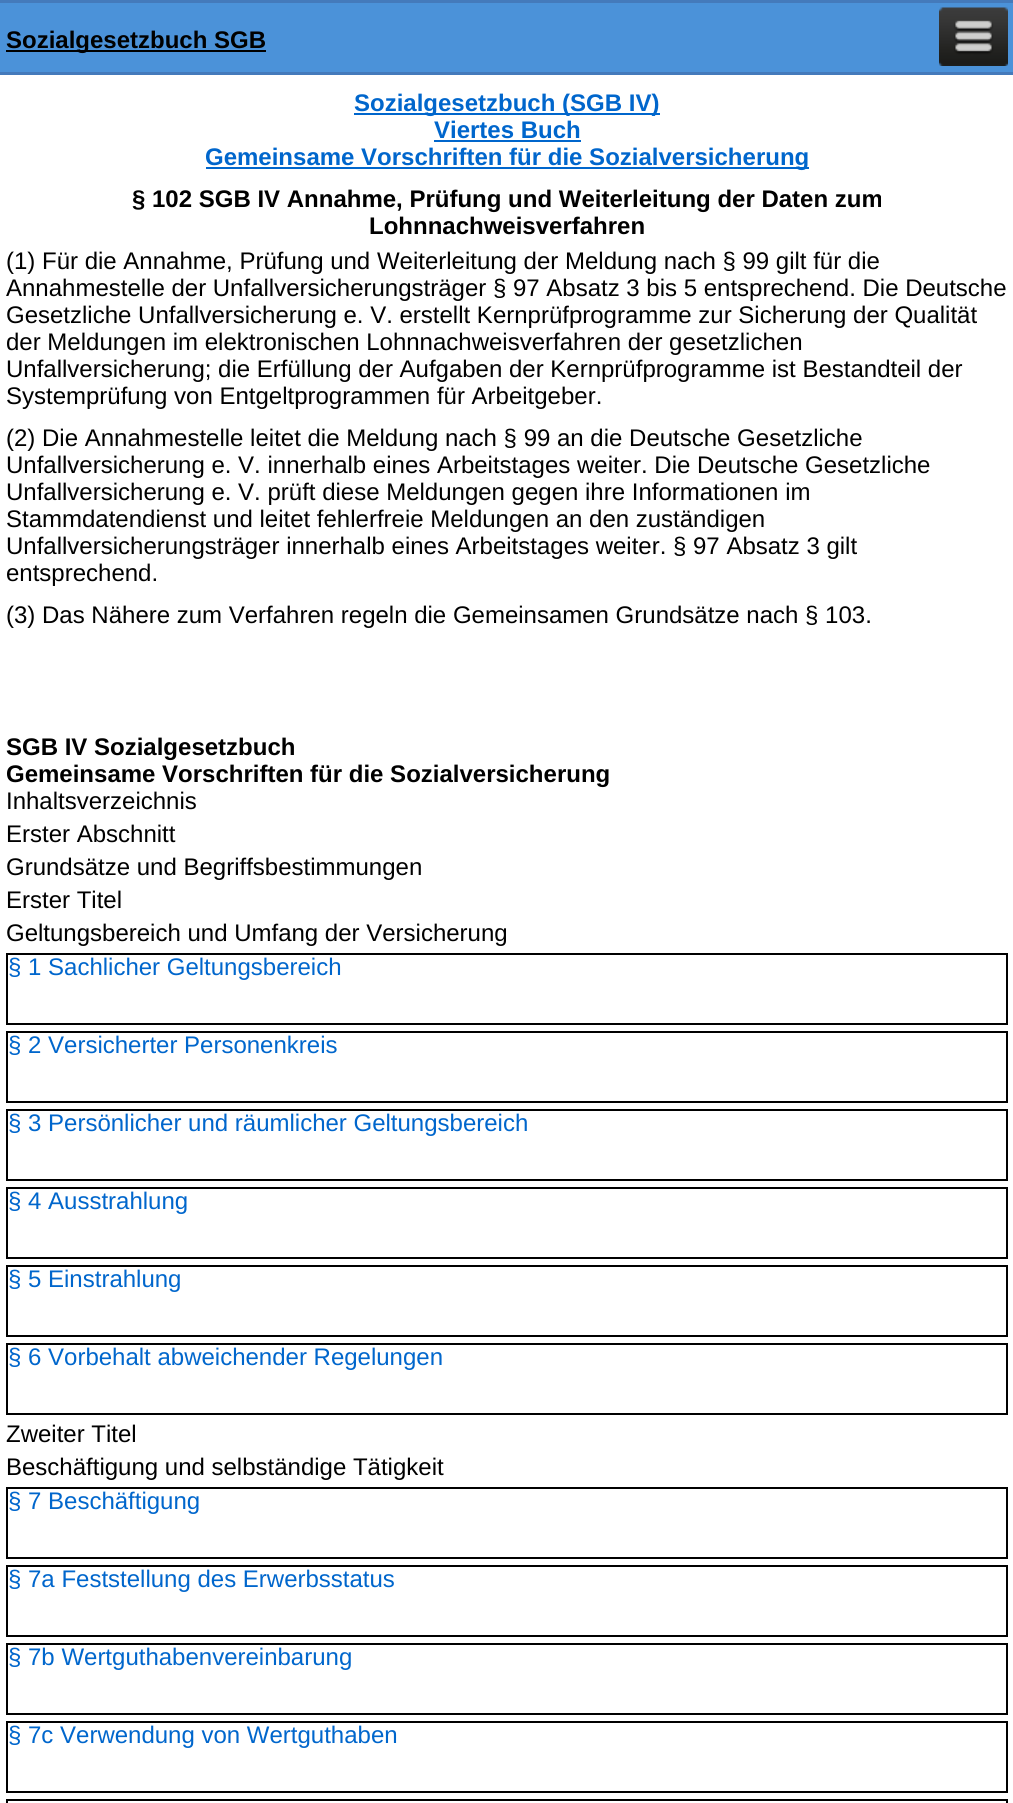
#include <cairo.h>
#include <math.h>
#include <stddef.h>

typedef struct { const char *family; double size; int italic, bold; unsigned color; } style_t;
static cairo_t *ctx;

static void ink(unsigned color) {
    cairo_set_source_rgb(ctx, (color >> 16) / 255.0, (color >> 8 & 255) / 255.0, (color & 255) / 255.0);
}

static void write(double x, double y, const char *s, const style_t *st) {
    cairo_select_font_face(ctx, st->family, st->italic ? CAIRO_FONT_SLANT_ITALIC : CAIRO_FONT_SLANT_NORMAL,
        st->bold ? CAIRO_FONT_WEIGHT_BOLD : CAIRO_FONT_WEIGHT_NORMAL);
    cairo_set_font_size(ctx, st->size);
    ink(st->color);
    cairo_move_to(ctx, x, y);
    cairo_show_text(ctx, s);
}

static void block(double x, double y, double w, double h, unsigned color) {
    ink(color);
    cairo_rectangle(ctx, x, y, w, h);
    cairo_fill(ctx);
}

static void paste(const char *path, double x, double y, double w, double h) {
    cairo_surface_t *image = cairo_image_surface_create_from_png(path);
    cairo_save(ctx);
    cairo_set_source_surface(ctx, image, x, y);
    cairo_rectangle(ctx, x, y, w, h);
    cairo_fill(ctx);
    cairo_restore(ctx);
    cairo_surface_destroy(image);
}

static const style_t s1 = {"Liberation Sans", 24, 0, 1, 0x000000};
static const style_t s2 = {"Liberation Sans", 24, 0, 1, 0x0066cc};
static const style_t s3 = {"Liberation Sans", 24, 0, 0, 0x000000};
static const style_t s4 = {"Liberation Sans", 24, 0, 0, 0x0066cc};

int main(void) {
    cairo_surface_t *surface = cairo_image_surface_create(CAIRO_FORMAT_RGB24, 1013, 1803);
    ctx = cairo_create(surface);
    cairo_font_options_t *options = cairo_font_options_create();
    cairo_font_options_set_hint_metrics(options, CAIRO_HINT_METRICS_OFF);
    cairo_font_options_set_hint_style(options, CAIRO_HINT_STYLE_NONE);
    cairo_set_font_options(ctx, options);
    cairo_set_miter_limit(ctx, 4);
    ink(0xffffff);
    cairo_paint(ctx);
    block(0, 3, 1013, 69, 0x4b92d9);
    block(0, 0, 1013, 3, 0x447abb);
    block(0, 72, 1013, 3, 0x447abb);
    block(6, 50, 260, 2, 0x000000);
    write(6, 48, "Sozialgesetzbuch SGB", &s1);
    paste("pic1.png", 939, 7, 69, 59);
    block(354, 113, 306, 2, 0x0066cc);
    write(354, 111, "Sozialgesetzbuch (SGB IV)", &s2);
    write(434, 138, "Viertes Buch", &s2);
    block(434, 140, 147, 2, 0x0066cc);
    block(206, 167, 603, 2, 0x0066cc);
    write(205, 165, "Gemeinsame Vorschriften für die Sozialversicherung", &s2);
    write(132, 207, "§ 102 SGB IV Annahme, Prüfung und Weiterleitung der Daten zum", &s1);
    write(369, 234, "Lohnnachweisverfahren", &s1);
    write(6, 269, "(1) Für die Annahme, Prüfung und Weiterleitung der Meldung nach § 99 gilt für die", &s3);
    write(6, 296, "Annahmestelle der Unfallversicherungsträger § 97 Absatz 3 bis 5 entsprechend. Die Deutsche", &s3);
    write(6, 323, "Gesetzliche Unfallversicherung e. V. erstellt Kernprüfprogramme zur Sicherung der Qualität", &s3);
    write(6, 350, "der Meldungen im elektronischen Lohnnachweisverfahren der gesetzlichen", &s3);
    write(6, 377, "Unfallversicherung; die Erfüllung der Aufgaben der Kernprüfprogramme ist Bestandteil der", &s3);
    write(6, 404, "Systemprüfung von Entgeltprogrammen für Arbeitgeber.", &s3);
    write(6, 446, "(2) Die Annahmestelle leitet die Meldung nach § 99 an die Deutsche Gesetzliche", &s3);
    write(6, 473, "Unfallversicherung e. V. innerhalb eines Arbeitstages weiter. Die Deutsche Gesetzliche", &s3);
    write(6, 500, "Unfallversicherung e. V. prüft diese Meldungen gegen ihre Informationen im", &s3);
    write(6, 527, "Stammdatendienst und leitet fehlerfreie Meldungen an den zuständigen", &s3);
    write(6, 554, "Unfallversicherungsträger innerhalb eines Arbeitstages weiter. § 97 Absatz 3 gilt", &s3);
    write(6, 581, "entsprechend.", &s3);
    write(6, 623, "(3) Das Nähere zum Verfahren regeln die Gemeinsamen Grundsätze nach § 103.", &s3);
    write(6, 755, "SGB IV Sozialgesetzbuch", &s1);
    write(6, 782, "Gemeinsame Vorschriften für die Sozialversicherung", &s1);
    write(6, 809, "Inhaltsverzeichnis", &s3);
    write(6, 842, "Erster Abschnitt", &s3);
    write(6, 875, "Grundsätze und Begriffsbestimmungen", &s3);
    write(6, 908, "Erster Titel", &s3);
    write(6, 941, "Geltungsbereich und Umfang der Versicherung", &s3);
    cairo_rectangle(ctx, 7, 954, 1000, 70);
    cairo_stroke(ctx);
    write(8, 975, "§ 1 Sachlicher Geltungsbereich", &s4);
    cairo_rectangle(ctx, 7, 1032, 1000, 70);
    ink(0x000000);
    cairo_stroke(ctx);
    write(8, 1053, "§ 2 Versicherter Personenkreis", &s4);
    cairo_rectangle(ctx, 7, 1110, 1000, 70);
    ink(0x000000);
    cairo_stroke(ctx);
    write(8, 1131, "§ 3 Persönlicher und räumlicher Geltungsbereich", &s4);
    cairo_rectangle(ctx, 7, 1188, 1000, 70);
    ink(0x000000);
    cairo_stroke(ctx);
    write(8, 1209, "§ 4 Ausstrahlung", &s4);
    cairo_rectangle(ctx, 7, 1266, 1000, 70);
    ink(0x000000);
    cairo_stroke(ctx);
    write(8, 1287, "§ 5 Einstrahlung", &s4);
    cairo_rectangle(ctx, 7, 1344, 1000, 70);
    ink(0x000000);
    cairo_stroke(ctx);
    write(8, 1365, "§ 6 Vorbehalt abweichender Regelungen", &s4);
    write(6, 1442, "Zweiter Titel", &s3);
    write(6, 1475, "Beschäftigung und selbständige Tätigkeit", &s3);
    cairo_rectangle(ctx, 7, 1488, 1000, 70);
    cairo_stroke(ctx);
    write(8, 1509, "§ 7 Beschäftigung", &s4);
    cairo_rectangle(ctx, 7, 1566, 1000, 70);
    ink(0x000000);
    cairo_stroke(ctx);
    write(8, 1587, "§ 7a Feststellung des Erwerbsstatus", &s4);
    cairo_rectangle(ctx, 7, 1644, 1000, 70);
    ink(0x000000);
    cairo_stroke(ctx);
    write(8, 1665, "§ 7b Wertguthabenvereinbarung", &s4);
    cairo_rectangle(ctx, 7, 1722, 1000, 70);
    ink(0x000000);
    cairo_stroke(ctx);
    write(8, 1743, "§ 7c Verwendung von Wertguthaben", &s4);
    cairo_rectangle(ctx, 7, 1800, 1000, 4);
    ink(0x000000);
    cairo_stroke(ctx);
    cairo_surface_write_to_png(surface, "screenshot.png");
    cairo_font_options_destroy(options);
    cairo_destroy(ctx);
    cairo_surface_destroy(surface);
    return 0;
}
